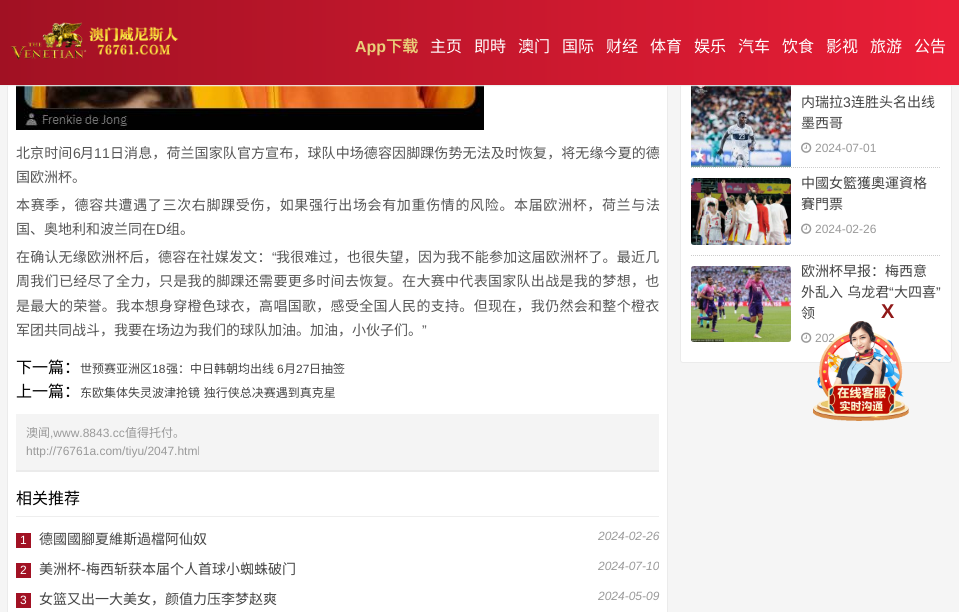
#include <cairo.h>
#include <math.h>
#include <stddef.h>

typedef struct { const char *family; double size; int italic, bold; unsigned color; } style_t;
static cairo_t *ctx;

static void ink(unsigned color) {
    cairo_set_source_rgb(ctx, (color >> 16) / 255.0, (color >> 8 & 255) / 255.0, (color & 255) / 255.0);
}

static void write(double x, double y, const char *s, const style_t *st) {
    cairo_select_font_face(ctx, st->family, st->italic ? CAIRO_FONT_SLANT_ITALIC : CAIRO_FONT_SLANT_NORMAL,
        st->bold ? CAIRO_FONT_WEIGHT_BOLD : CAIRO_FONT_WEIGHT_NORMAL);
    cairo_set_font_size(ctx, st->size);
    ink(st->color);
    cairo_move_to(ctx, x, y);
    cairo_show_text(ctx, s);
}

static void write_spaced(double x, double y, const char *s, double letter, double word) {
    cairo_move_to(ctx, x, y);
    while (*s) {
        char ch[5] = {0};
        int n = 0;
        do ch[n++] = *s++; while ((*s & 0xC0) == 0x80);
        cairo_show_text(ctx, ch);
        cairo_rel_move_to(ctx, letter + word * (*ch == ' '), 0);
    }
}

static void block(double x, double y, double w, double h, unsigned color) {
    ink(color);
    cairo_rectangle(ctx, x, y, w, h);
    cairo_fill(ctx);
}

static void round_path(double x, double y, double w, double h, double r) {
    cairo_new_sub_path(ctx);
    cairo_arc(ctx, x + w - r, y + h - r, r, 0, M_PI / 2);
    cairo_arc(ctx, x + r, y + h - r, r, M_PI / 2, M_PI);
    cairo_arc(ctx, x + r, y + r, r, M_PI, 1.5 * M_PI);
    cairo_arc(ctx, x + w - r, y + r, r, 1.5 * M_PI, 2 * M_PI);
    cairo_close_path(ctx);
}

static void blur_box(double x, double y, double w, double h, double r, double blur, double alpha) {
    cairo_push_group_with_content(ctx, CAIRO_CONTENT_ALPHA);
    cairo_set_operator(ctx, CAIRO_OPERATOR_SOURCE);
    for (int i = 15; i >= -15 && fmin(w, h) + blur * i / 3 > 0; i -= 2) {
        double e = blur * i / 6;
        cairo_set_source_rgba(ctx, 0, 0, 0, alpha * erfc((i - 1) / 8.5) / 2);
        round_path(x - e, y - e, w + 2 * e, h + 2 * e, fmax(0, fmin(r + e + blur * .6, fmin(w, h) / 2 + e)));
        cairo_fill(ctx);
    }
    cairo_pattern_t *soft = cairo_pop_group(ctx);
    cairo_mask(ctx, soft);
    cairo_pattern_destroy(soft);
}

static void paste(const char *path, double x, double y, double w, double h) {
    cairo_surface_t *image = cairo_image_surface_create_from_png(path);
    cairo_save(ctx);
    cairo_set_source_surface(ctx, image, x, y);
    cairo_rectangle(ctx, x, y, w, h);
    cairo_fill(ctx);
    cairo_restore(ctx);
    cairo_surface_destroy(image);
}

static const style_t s1 = {"Liberation Sans", 16, 0, 1, 0xe9cf79};
static const style_t s2 = {"Noto Sans CJK SC", 16, 0, 1, 0xe9cf79};
static const style_t s3 = {"Noto Sans CJK SC", 16, 0, 0, 0xffffff};
static const style_t s4 = {"Noto Sans CJK SC", 14, 0, 0, 0x555555};
static const style_t s5 = {"Liberation Sans", 14, 0, 0, 0x555555};
static const style_t s6 = {"Noto Sans CJK SC", 16, 0, 0, 0x000000};
static const style_t s7 = {"Noto Sans CJK SC", 12, 0, 0, 0x444444};
static const style_t s8 = {"Liberation Sans", 12, 0, 0, 0x444444};
static const style_t s9 = {"Noto Sans CJK SC", 12, 0, 0, 0x999999};
static const style_t s10 = {"Liberation Sans", 12, 0, 0, 0x999999};
static const style_t s11 = {"Liberation Sans", 12, 0, 0, 0xffffff};
static const style_t s12 = {"Noto Sans CJK SC", 14, 0, 0, 0x444444};
static const style_t s13 = {"Liberation Sans", 12, 1, 0, 0x999999};
static const style_t s14 = {"Liberation Sans", 14, 0, 0, 0x444444};
static const style_t s15 = {"Liberation Sans", 20, 0, 1, 0x901919};

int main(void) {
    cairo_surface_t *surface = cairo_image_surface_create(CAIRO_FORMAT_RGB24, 959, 612);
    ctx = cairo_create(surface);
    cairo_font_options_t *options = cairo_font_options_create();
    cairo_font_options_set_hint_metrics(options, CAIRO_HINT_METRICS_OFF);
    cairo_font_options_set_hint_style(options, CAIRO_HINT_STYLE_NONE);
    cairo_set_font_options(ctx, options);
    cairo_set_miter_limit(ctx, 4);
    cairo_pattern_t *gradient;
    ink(0xf5f5f5);
    cairo_paint(ctx);
    block(8, 85, 659, 527, 0xffffff);
    cairo_rectangle(ctx, 7.5, -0.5, 660, 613);
    ink(0xebebeb);
    cairo_set_line_width(ctx, 1);
    cairo_stroke(ctx);
    paste("pic2.png", 16, 85, 468, 45);
    ink(0xffffff);
    round_path(680.5, -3.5, 271, 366, 2.5);
    cairo_fill_preserve(ctx);
    ink(0xebebeb);
    cairo_stroke(ctx);
    paste("pic3.png", 691, 85, 100, 82);
    ink(0xeeeeee);
    blur_box(0, 1, 959, 85, 0, 0.5, 1);
    gradient = cairo_pattern_create_linear(0, 43, 959, 42);
    cairo_pattern_add_color_stop_rgba(gradient, 0, 0.631, 0.067, 0.137, 1);
    cairo_pattern_add_color_stop_rgba(gradient, 1, 0.918, 0.118, 0.216, 1);
    cairo_set_source(ctx, gradient);
    cairo_pattern_destroy(gradient);
    cairo_rectangle(ctx, 0, 0, 959, 85);
    cairo_fill(ctx);
    paste("pic1.png", 10, 22, 169, 38);
    write(355, 52, "App", &s1);
    write(386, 52, "下载", &s2);
    write(430, 52, "主页", &s3);
    write(474, 52, "即時", &s3);
    write(518, 52, "澳门", &s3);
    write(562, 52, "国际", &s3);
    write(606, 52, "财经", &s3);
    write(650, 52, "体育", &s3);
    write(694, 52, "娱乐", &s3);
    write(738, 52, "汽车", &s3);
    write(782, 52, "饮食", &s3);
    write(826, 52, "影视", &s3);
    write(870, 52, "旅游", &s3);
    write(914, 52, "公告", &s3);
    cairo_set_font_size(ctx, 14);
    ink(0x555555);
    write_spaced(16, 158, "北京时间", 0.1, 0);
    cairo_select_font_face(ctx, "Liberation Sans", CAIRO_FONT_SLANT_NORMAL, CAIRO_FONT_WEIGHT_NORMAL);
    write_spaced(73, 158, "6", 0.1, 0);
    cairo_select_font_face(ctx, "Noto Sans CJK SC", CAIRO_FONT_SLANT_NORMAL, CAIRO_FONT_WEIGHT_NORMAL);
    write_spaced(80, 158, "月", 0.1, 0);
    cairo_select_font_face(ctx, "Liberation Sans", CAIRO_FONT_SLANT_NORMAL, CAIRO_FONT_WEIGHT_NORMAL);
    write_spaced(94, 158, "11", 0.1, 0);
    cairo_select_font_face(ctx, "Noto Sans CJK SC", CAIRO_FONT_SLANT_NORMAL, CAIRO_FONT_WEIGHT_NORMAL);
    write_spaced(110, 158, "日消息，荷兰国家队官方宣布，球队中场德容因脚踝伤势无法及时恢复，将无缘今夏的德", 0.1, 0);
    write(16, 182, "国欧洲杯。", &s4);
    write_spaced(16, 210, "本赛季，德容共遭遇了三次右脚踝受伤，如果强行出场会有加重伤情的风险。本届欧洲杯，荷兰与法", 0.65, 0);
    write(16, 234, "国、奥地利和波兰同在", &s4);
    write(156, 234, "D", &s5);
    write(166, 234, "组。", &s4);
    write_spaced(16, 262, "在确认无缘欧洲杯后，德容在社媒发文：", 0.2, 0);
    cairo_select_font_face(ctx, "Liberation Sans", CAIRO_FONT_SLANT_NORMAL, CAIRO_FONT_WEIGHT_NORMAL);
    write_spaced(272, 262, "“", 0.2, 0);
    cairo_select_font_face(ctx, "Noto Sans CJK SC", CAIRO_FONT_SLANT_NORMAL, CAIRO_FONT_WEIGHT_NORMAL);
    write_spaced(276, 262, "我很难过，也很失望，因为我不能参加这届欧洲杯了。最近几", 0.2, 0);
    write_spaced(16, 286, "周我们已经尽了全力，只是我的脚踝还需要更多时间去恢复。在大赛中代表国家队出战是我的梦想，也", 0.3, 0);
    write_spaced(16, 311, "是最大的荣誉。我本想身穿橙色球衣，高唱国歌，感受全国人民的支持。但现在，我仍然会和整个橙衣", 0.3, 0);
    write(16, 335, "军团共同战斗，我要在场边为我们的球队加油。加油，小伙子们。", &s4);
    write(422, 335, "”", &s5);
    write(16, 373, "下一篇：", &s6);
    write(80, 373, "世预赛亚洲区", &s7);
    write(152, 373, "18", &s8);
    write(166, 373, "强：中日韩朝均出线", &s7);
    write(277, 373, "6", &s8);
    write(284, 373, "月", &s7);
    write(296, 373, "27", &s8);
    write(309, 373, "日抽签", &s7);
    write(16, 397, "上一篇：", &s6);
    cairo_set_font_size(ctx, 12);
    ink(0x444444);
    write_spaced(80, 397, "东欧集体失灵波津抢镜 独行侠总决赛遇到真克星", 0, 1);
    block(16, 414, 643, 56, 0xf4f4f4);
    block(16, 470, 643, 2, 0xebebeb);
    write(26, 437, "澳闻", &s9);
    write(50, 437, ",www.8843.cc", &s10);
    write(125, 437, "值得托付。", &s9);
    write(26, 455, "http://76761a.com/tiyu/2047.html", &s10);
    block(16, 516, 643, 1, 0xeeeeee);
    write(16, 504, "相关推荐", &s6);
    block(16, 533, 15, 15, 0xa11123);
    write(20, 544, "1", &s11);
    write(39, 544, "德國國腳夏維斯過檔阿仙奴", &s12);
    write(598, 540, "2024-02-26", &s13);
    block(16, 563, 15, 15, 0xa11123);
    write(20, 574, "2", &s11);
    write(39, 574, "美洲杯", &s12);
    write(81, 574, "-", &s14);
    write(86, 574, "梅西斩获本届个人首球小蜘蛛破门", &s12);
    cairo_save(ctx);
    cairo_rectangle(ctx, 16, 557, 643, 24);
    cairo_clip(ctx);
    write(598, 570, "2024-07-10", &s13);
    cairo_restore(ctx);
    block(16, 593, 15, 15, 0xa11123);
    write(20, 604, "3", &s11);
    write(39, 604, "女篮又出一大美女，颜值力压李梦赵爽", &s12);
    write(598, 600, "2024-05-09", &s13);
    cairo_new_path(ctx);
    cairo_move_to(ctx, 691, 167.5);
    cairo_line_to(ctx, 941, 167.5);
    ink(0xcccccc);
    cairo_set_dash(ctx, (double[]){1, 1}, 2, 0);
    cairo_stroke(ctx);
    write(801, 107, "内瑞拉", &s12);
    write(843, 107, "3", &s14);
    write(851, 107, "连胜头名出线", &s12);
    write(801, 128, "墨西哥", &s12);
    paste("pic4.png", 801, 142, 11, 11);
    write(815, 152, "2024-07-01", &s10);
    cairo_new_path(ctx);
    cairo_move_to(ctx, 691, 255.5);
    cairo_line_to(ctx, 941, 255.5);
    ink(0xcccccc);
    cairo_stroke(ctx);
    paste("pic5.png", 691, 178, 100, 67);
    write(801, 188, "中國女籃獲奧運資格", &s12);
    write(801, 209, "賽門票", &s12);
    paste("pic4.png", 801, 223, 11, 11);
    write(815, 233, "2024-02-26", &s10);
    paste("pic6.png", 691, 266, 100, 76);
    write(801, 276, "欧洲杯早报：梅西意", &s12);
    write_spaced(801, 297, "外乱入 乌龙君", 0, 1);
    write(889, 297, "“", &s14);
    write(894, 297, "大四喜", &s12);
    write(936, 297, "”", &s14);
    write(801, 318, "领", &s12);
    paste("pic4.png", 801, 332, 11, 11);
    write(815, 342, "202", &s10);
    write(881, 318, "X", &s15);
    paste("pic7.png", 813, 321, 96, 100);
    cairo_surface_write_to_png(surface, "screenshot.png");
    cairo_font_options_destroy(options);
    cairo_destroy(ctx);
    cairo_surface_destroy(surface);
    return 0;
}
